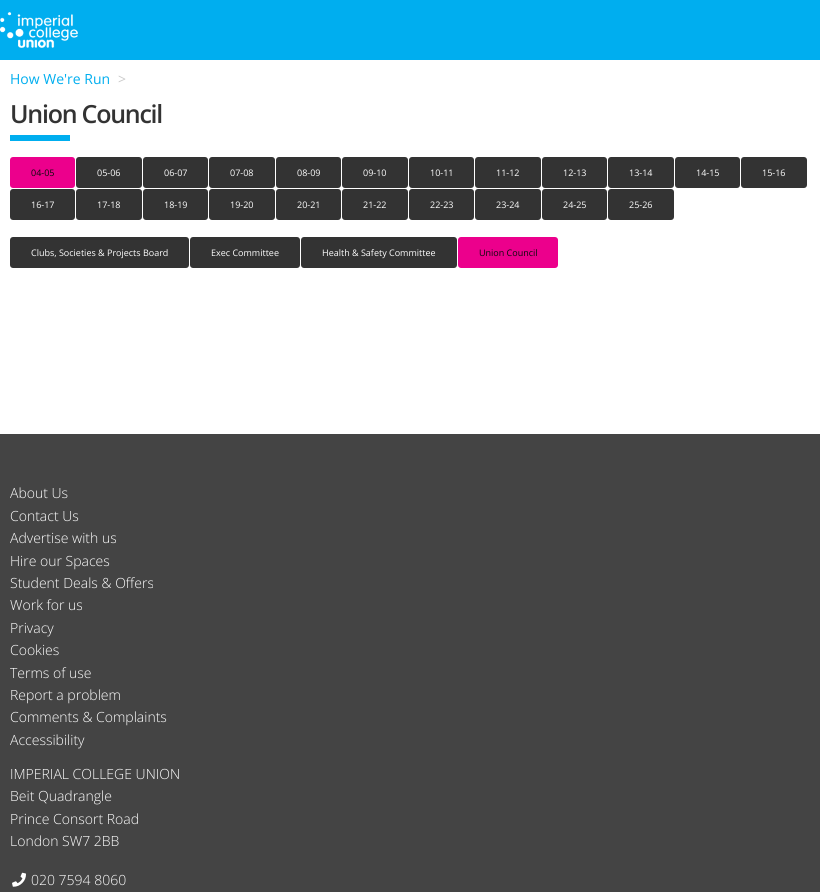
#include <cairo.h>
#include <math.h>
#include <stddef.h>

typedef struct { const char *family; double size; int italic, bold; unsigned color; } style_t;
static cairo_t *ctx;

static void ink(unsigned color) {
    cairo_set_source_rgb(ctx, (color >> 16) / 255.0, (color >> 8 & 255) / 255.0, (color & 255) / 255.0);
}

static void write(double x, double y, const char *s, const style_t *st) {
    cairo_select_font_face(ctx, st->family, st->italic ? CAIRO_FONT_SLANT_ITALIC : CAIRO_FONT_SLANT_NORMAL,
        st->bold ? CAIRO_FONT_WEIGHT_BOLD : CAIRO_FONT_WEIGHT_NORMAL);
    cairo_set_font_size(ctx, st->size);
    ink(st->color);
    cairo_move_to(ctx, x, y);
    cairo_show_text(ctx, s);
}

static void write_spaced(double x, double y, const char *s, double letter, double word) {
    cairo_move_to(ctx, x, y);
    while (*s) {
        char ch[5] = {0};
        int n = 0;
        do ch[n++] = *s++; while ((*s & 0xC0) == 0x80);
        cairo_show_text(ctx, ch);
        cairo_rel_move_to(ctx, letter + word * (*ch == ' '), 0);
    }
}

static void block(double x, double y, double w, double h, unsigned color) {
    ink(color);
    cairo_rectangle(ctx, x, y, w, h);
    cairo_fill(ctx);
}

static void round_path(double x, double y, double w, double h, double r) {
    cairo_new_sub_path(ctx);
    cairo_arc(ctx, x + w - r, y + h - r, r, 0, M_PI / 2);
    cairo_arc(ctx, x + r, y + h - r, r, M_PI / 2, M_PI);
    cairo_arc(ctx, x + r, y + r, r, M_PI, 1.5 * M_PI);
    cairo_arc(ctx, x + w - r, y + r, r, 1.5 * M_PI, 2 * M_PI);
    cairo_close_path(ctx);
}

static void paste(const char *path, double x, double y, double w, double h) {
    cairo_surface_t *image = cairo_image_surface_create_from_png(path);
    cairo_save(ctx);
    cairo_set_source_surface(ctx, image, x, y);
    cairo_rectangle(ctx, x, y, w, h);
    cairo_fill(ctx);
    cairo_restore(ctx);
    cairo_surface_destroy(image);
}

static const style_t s1 = {"Open Sans", 14, 0, 0, 0x00aeef};
static const style_t s2 = {"Open Sans", 14, 0, 0, 0xcacaca};
static const style_t s3 = {"Open Sans", 9, 0, 0, 0x0a0a0a};
static const style_t s4 = {"Open Sans", 9, 0, 0, 0xfefefe};
static const style_t s5 = {"Open Sans Light", 14, 0, 0, 0xfefefe};

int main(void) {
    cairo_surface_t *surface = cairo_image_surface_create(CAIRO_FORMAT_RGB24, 820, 892);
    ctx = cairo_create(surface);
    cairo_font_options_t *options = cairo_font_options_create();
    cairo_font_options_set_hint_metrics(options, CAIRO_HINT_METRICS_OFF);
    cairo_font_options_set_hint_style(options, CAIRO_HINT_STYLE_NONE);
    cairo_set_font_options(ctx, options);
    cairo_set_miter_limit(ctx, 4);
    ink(0xffffff);
    cairo_paint(ctx);
    block(0, 0, 820, 60, 0x00aeef);
    paste("pic1.png", 0, 12, 78, 36);
    write(10, 84, "How We're Run", &s1);
    write(118, 84, ">", &s2);
    cairo_select_font_face(ctx, "Open Sans SemiBold", CAIRO_FONT_SLANT_NORMAL, CAIRO_FONT_WEIGHT_NORMAL);
    cairo_set_font_size(ctx, 25);
    ink(0x333333);
    write_spaced(10, 123, "Union Council", -1.25, 0);
    block(10, 135, 60, 6, 0x00aeef);
    ink(0xec008c);
    round_path(10, 157, 65, 31, 3);
    cairo_fill(ctx);
    write(31, 176, "04-05", &s3);
    ink(0x333333);
    round_path(76, 157, 66, 31, 3);
    cairo_fill(ctx);
    write(97, 176, "05-06", &s4);
    ink(0x333333);
    round_path(143, 157, 65, 31, 3);
    cairo_fill(ctx);
    write(164, 176, "06-07", &s4);
    ink(0x333333);
    round_path(209, 157, 66, 31, 3);
    cairo_fill(ctx);
    write(230, 176, "07-08", &s4);
    ink(0x333333);
    round_path(276, 157, 65, 31, 3);
    cairo_fill(ctx);
    write(297, 176, "08-09", &s4);
    ink(0x333333);
    round_path(342, 157, 66, 31, 3);
    cairo_fill(ctx);
    write(363, 176, "09-10", &s4);
    ink(0x333333);
    round_path(409, 157, 65, 31, 3);
    cairo_fill(ctx);
    write(430, 176, "10-11", &s4);
    ink(0x333333);
    round_path(475, 157, 66, 31, 3);
    cairo_fill(ctx);
    write(496, 176, "11-12", &s4);
    ink(0x333333);
    round_path(542, 157, 65, 31, 3);
    cairo_fill(ctx);
    write(563, 176, "12-13", &s4);
    ink(0x333333);
    round_path(608, 157, 66, 31, 3);
    cairo_fill(ctx);
    write(629, 176, "13-14", &s4);
    ink(0x333333);
    round_path(675, 157, 65, 31, 3);
    cairo_fill(ctx);
    write(696, 176, "14-15", &s4);
    ink(0x333333);
    round_path(741, 157, 66, 31, 3);
    cairo_fill(ctx);
    write(762, 176, "15-16", &s4);
    ink(0x333333);
    round_path(10, 189, 65, 31, 3);
    cairo_fill(ctx);
    write(31, 208, "16-17", &s4);
    ink(0x333333);
    round_path(76, 189, 66, 31, 3);
    cairo_fill(ctx);
    write(97, 208, "17-18", &s4);
    ink(0x333333);
    round_path(143, 189, 65, 31, 3);
    cairo_fill(ctx);
    write(164, 208, "18-19", &s4);
    ink(0x333333);
    round_path(209, 189, 66, 31, 3);
    cairo_fill(ctx);
    write(230, 208, "19-20", &s4);
    ink(0x333333);
    round_path(276, 189, 65, 31, 3);
    cairo_fill(ctx);
    write(297, 208, "20-21", &s4);
    ink(0x333333);
    round_path(342, 189, 66, 31, 3);
    cairo_fill(ctx);
    write(363, 208, "21-22", &s4);
    ink(0x333333);
    round_path(409, 189, 65, 31, 3);
    cairo_fill(ctx);
    write(430, 208, "22-23", &s4);
    ink(0x333333);
    round_path(475, 189, 66, 31, 3);
    cairo_fill(ctx);
    write(496, 208, "23-24", &s4);
    ink(0x333333);
    round_path(542, 189, 65, 31, 3);
    cairo_fill(ctx);
    write(563, 208, "24-25", &s4);
    ink(0x333333);
    round_path(608, 189, 66, 31, 3);
    cairo_fill(ctx);
    write(629, 208, "25-26", &s4);
    ink(0x333333);
    round_path(10, 237, 179, 31, 3);
    cairo_fill(ctx);
    write(31, 256, "Clubs, Societies & Projects Board", &s4);
    ink(0x333333);
    round_path(190, 237, 110, 31, 3);
    cairo_fill(ctx);
    write(211, 256, "Exec Committee", &s4);
    ink(0x333333);
    round_path(301, 237, 156, 31, 3);
    cairo_fill(ctx);
    write(322, 256, "Health & Safety Committee", &s4);
    ink(0xec008c);
    round_path(458, 237, 100, 31, 3);
    cairo_fill(ctx);
    write(479, 256, "Union Council", &s3);
    block(0, 434, 820, 458, 0x444444);
    write(10, 498, "About Us", &s5);
    write(10, 521, "Contact Us", &s5);
    write(10, 543, "Advertise with us", &s5);
    write(10, 566, "Hire our Spaces", &s5);
    write(10, 588, "Student Deals & Offers", &s5);
    write(10, 610, "Work for us", &s5);
    write(10, 633, "Privacy", &s5);
    write(10, 655, "Cookies", &s5);
    write(10, 678, "Terms of use", &s5);
    write(10, 700, "Report a problem", &s5);
    write(10, 722, "Comments & Complaints", &s5);
    write(10, 745, "Accessibility", &s5);
    write(10, 779, "IMPERIAL COLLEGE UNION", &s5);
    write(10, 801, "Beit Quadrangle", &s5);
    write(10, 824, "Prince Consort Road", &s5);
    write(10, 846, "London SW7 2BB", &s5);
    paste("pic2.png", 12, 872, 14, 15);
    write(31, 885, "020 7594 8060", &s5);
    cairo_surface_write_to_png(surface, "screenshot.png");
    cairo_font_options_destroy(options);
    cairo_destroy(ctx);
    cairo_surface_destroy(surface);
    return 0;
}
